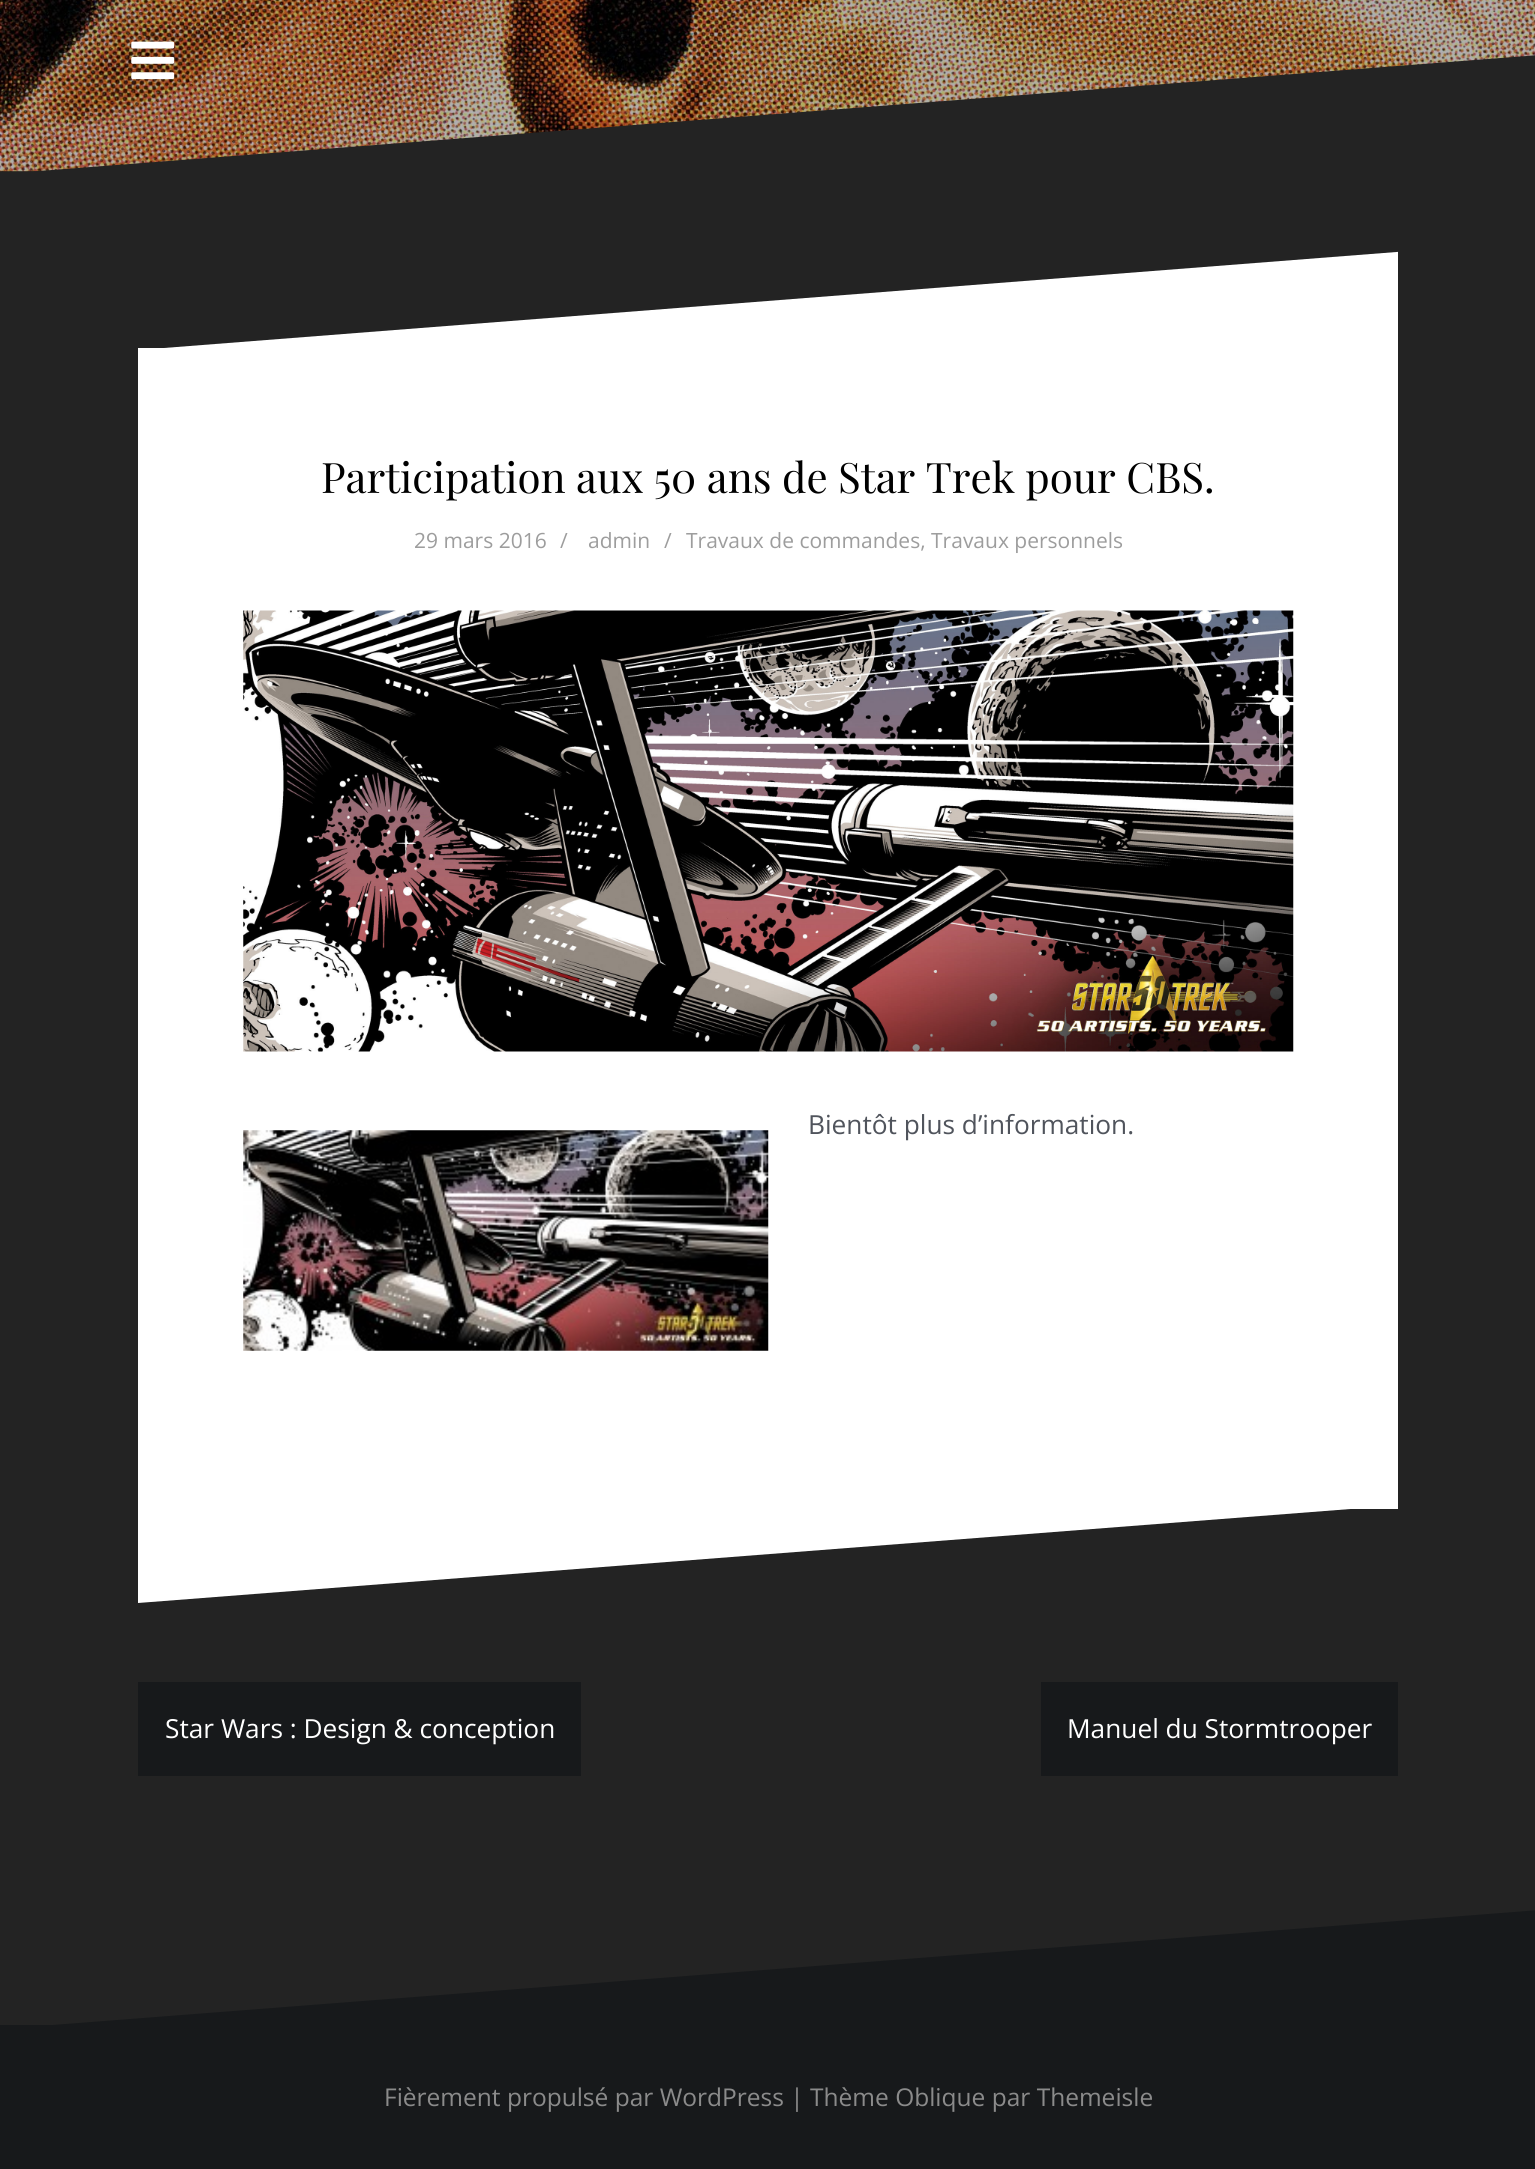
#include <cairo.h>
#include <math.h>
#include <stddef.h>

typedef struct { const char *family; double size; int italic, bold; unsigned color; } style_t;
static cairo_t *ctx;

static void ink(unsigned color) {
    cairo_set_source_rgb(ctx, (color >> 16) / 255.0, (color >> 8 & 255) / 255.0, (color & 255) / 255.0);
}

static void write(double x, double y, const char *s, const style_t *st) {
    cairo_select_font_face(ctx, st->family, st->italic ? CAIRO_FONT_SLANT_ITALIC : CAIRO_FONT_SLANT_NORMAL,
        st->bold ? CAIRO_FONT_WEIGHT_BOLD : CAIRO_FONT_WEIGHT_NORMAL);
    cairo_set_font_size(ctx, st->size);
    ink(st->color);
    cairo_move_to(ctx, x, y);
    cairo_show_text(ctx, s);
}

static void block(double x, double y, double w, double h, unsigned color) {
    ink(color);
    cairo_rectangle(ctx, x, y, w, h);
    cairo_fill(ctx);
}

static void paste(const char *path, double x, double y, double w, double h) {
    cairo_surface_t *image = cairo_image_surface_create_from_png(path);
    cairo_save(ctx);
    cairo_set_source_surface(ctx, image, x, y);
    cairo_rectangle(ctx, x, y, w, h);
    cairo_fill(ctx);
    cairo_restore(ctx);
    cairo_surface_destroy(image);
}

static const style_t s1 = {"Playfair Display", 42, 0, 0, 0x000000};
static const style_t s2 = {"Open Sans", 21, 0, 0, 0x9d9d9d};
static const style_t s3 = {"Open Sans", 26.25, 0, 0, 0x50545c};
static const style_t s4 = {"Open Sans", 26.25, 0, 0, 0xffffff};
static const style_t s5 = {"Open Sans", 24.5, 0, 0, 0x8b8b8b};

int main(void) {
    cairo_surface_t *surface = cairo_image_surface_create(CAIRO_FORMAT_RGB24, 1535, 2169);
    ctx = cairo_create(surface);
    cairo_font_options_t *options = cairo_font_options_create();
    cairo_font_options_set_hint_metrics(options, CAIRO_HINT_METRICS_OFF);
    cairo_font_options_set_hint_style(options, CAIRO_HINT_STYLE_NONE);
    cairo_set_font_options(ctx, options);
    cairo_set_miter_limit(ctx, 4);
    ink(0x232323);
    cairo_paint(ctx);
    block(0, 171, 39, 1, 0x191919);
    paste("pic1.png", 0, 0, 1535, 172);
    ink(0x232323);
    cairo_new_path(ctx);
    cairo_move_to(ctx, 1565, 53);
    cairo_line_to(ctx, 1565, 174);
    cairo_line_to(ctx, 0, 174);
    cairo_fill(ctx);
    paste("pic2.png", 131, 41, 44, 39);
    block(138, 348, 1260, 1161, 0xffffff);
    cairo_save(ctx);
    cairo_rectangle(ctx, 138, 250, 1260, 100);
    cairo_clip(ctx);
    cairo_new_path(ctx);
    cairo_move_to(ctx, 1422, 250);
    cairo_line_to(ctx, 1422, 350);
    cairo_line_to(ctx, 138, 350);
    cairo_fill(ctx);
    cairo_restore(ctx);
    write(321, 493, "Participation aux 50 ans de Star Trek pour CBS.", &s1);
    write(414, 548, "29 mars 2016", &s2);
    write(560, 548, "/", &s2);
    write(588, 548, "admin", &s2);
    write(664, 548, "/", &s2);
    write(686, 548, "Travaux de commandes, Travaux personnels", &s2);
    paste("pic3.png", 243, 610, 1051, 442);
    write(808, 1134, "Bientôt plus d’information.", &s3);
    paste("pic4.png", 243, 1130, 526, 221);
    cairo_save(ctx);
    cairo_rectangle(ctx, 138, 1505, 1260, 98);
    cairo_clip(ctx);
    ink(0xffffff);
    cairo_new_path(ctx);
    cairo_move_to(ctx, 138, 1603);
    cairo_line_to(ctx, 138, 1505);
    cairo_line_to(ctx, 1402, 1505);
    cairo_fill(ctx);
    cairo_restore(ctx);
    block(138, 1682, 443, 94, 0x17191b);
    write(165, 1738, "Star Wars : Design & conception", &s4);
    block(1041, 1682, 357, 94, 0x17191b);
    write(1067, 1738, "Manuel du Stormtrooper", &s4);
    block(0, 2025, 1535, 144, 0x17191b);
    cairo_save(ctx);
    cairo_rectangle(ctx, 0, 1908, 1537, 120);
    cairo_clip(ctx);
    cairo_new_path(ctx);
    cairo_move_to(ctx, 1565, 1908);
    cairo_line_to(ctx, 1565, 2029);
    cairo_line_to(ctx, 0, 2029);
    cairo_fill(ctx);
    cairo_restore(ctx);
    write(384, 2106, "Fièrement propulsé par WordPress | Thème Oblique par Themeisle", &s5);
    cairo_surface_write_to_png(surface, "screenshot.png");
    cairo_font_options_destroy(options);
    cairo_destroy(ctx);
    cairo_surface_destroy(surface);
    return 0;
}
